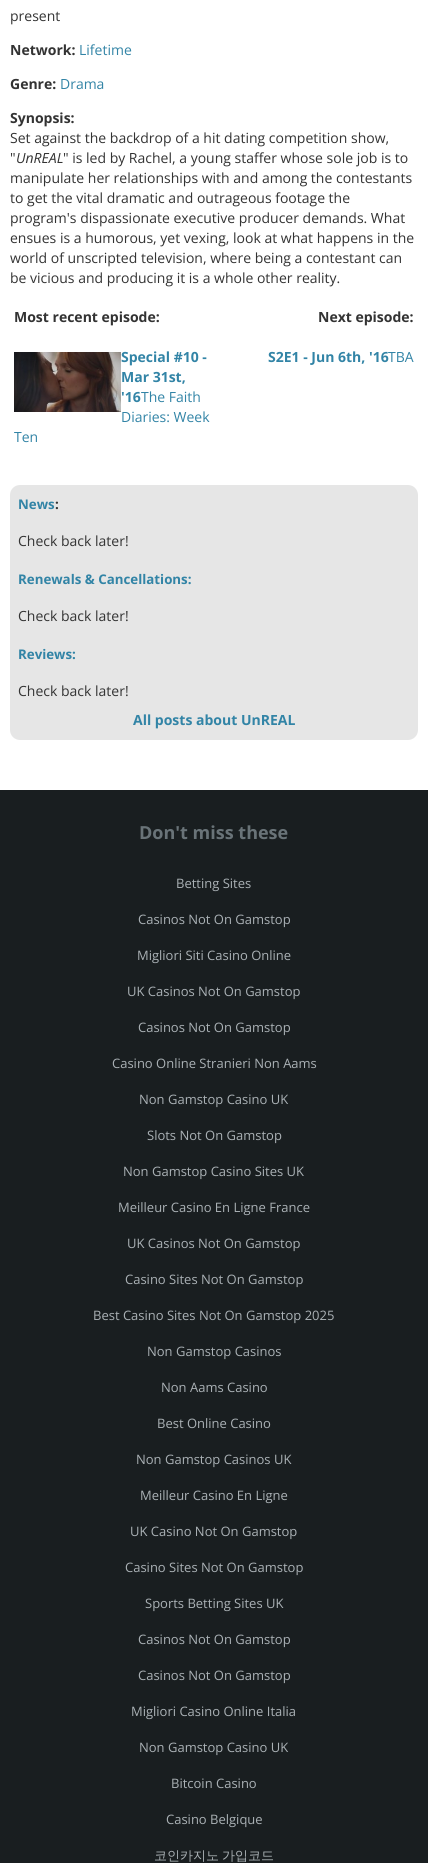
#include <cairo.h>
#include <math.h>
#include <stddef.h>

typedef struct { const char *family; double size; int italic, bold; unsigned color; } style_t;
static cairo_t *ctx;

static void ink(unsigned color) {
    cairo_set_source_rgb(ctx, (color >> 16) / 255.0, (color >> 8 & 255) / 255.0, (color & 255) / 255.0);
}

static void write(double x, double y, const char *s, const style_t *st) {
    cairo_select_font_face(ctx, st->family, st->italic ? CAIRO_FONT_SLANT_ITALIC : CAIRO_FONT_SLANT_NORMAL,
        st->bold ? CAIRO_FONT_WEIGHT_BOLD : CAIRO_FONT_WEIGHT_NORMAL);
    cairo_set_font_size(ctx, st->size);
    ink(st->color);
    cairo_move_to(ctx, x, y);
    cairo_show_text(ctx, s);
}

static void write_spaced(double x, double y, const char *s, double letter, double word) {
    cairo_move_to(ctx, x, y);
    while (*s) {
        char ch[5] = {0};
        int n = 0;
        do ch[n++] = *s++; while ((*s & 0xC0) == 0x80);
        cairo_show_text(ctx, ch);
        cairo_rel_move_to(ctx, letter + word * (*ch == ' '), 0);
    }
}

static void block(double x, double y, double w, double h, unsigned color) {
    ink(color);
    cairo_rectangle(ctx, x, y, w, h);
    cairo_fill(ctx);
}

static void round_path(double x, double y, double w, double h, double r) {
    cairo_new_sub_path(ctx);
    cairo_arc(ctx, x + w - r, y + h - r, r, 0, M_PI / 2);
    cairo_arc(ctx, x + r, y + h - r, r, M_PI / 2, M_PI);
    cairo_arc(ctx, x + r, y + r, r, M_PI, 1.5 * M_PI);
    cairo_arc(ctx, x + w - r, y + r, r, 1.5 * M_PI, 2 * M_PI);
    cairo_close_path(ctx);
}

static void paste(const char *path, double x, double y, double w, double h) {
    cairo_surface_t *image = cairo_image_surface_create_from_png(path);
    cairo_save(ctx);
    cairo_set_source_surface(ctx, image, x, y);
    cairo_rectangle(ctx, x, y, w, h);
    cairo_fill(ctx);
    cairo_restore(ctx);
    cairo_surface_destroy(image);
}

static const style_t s1 = {"Open Sans", 14, 0, 0, 0x333333};
static const style_t s2 = {"Open Sans", 14, 0, 1, 0x333333};
static const style_t s3 = {"Open Sans", 14, 0, 0, 0x3284a6};
static const style_t s4 = {"Open Sans", 14, 1, 0, 0x333333};
static const style_t s5 = {"Open Sans", 14, 0, 1, 0x3284a6};
static const style_t s6 = {"Open Sans", 13.3, 0, 1, 0x3284a6};
static const style_t s7 = {"Open Sans", 13.3, 0, 1, 0x333333};
static const style_t s8 = {"Open Sans", 18, 0, 1, 0x697378};
static const style_t s9 = {"Open Sans", 13, 0, 0, 0xaab1b5};

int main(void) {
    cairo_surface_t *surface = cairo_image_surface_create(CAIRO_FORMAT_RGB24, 428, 1863);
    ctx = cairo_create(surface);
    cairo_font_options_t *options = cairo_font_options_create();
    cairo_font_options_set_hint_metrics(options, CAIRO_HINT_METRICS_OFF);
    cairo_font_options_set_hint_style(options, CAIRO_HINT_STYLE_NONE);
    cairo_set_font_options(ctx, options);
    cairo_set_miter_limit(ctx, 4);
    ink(0xffffff);
    cairo_paint(ctx);
    write(10, 21, "present", &s1);
    write(10, 55, "Network:", &s2);
    write(79, 55, "Lifetime", &s3);
    write(10, 89, "Genre:", &s2);
    write(60, 89, "Drama", &s3);
    write(10, 123, "Synopsis:", &s2);
    write(10, 143, "Set against the backdrop of a hit dating competition show,", &s1);
    write(10, 163, "\"", &s1);
    write(16, 163, "UnREAL", &s4);
    write(63, 163, "\" is led by Rachel, a young staffer whose sole job is to", &s1);
    write(10, 183, "manipulate her relationships with and among the contestants", &s1);
    write(10, 203, "to get the vital dramatic and outrageous footage the", &s1);
    write(10, 223, "program's dispassionate executive producer demands. What", &s1);
    write(10, 243, "ensues is a humorous, yet vexing, look at what happens in the", &s1);
    write(10, 263, "world of unscripted television, where being a contestant can", &s1);
    write(10, 283, "be vicious and producing it is a whole other reality.", &s1);
    write(14, 322, "Most recent episode:", &s2);
    write(121, 362, "Special #10 -", &s5);
    write(121, 382, "Mar 31st,", &s5);
    write(121, 402, "'16", &s5);
    write(141, 402, "The Faith", &s3);
    write(121, 422, "Diaries: Week", &s3);
    write(14, 442, "Ten", &s3);
    paste("pic1.png", 14, 352, 107, 60);
    write(318, 322, "Next episode:", &s2);
    write(268, 362, "S2E1 - Jun 6th, '16", &s5);
    write(388, 362, "TBA", &s3);
    ink(0xe6e6e6);
    round_path(10, 485, 408, 255, 10);
    cairo_fill(ctx);
    write(18, 509, "News", &s6);
    write(55, 509, ":", &s7);
    write(18, 546, "Check back later!", &s1);
    write(18, 584, "Renewals & Cancellations:", &s6);
    write(18, 621, "Check back later!", &s1);
    write(18, 659, "Reviews:", &s6);
    write(18, 696, "Check back later!", &s1);
    write(133, 725, "All posts about UnREAL", &s5);
    block(0, 790, 428, 1073, 0x191e20);
    write(139, 839, "Don't miss these", &s8);
    write(176, 888, "Betting Sites", &s9);
    write(138, 924, "Casinos Not On Gamstop", &s9);
    write(137, 960, "Migliori Siti Casino Online", &s9);
    write(127, 996, "UK Casinos Not On Gamstop", &s9);
    write(138, 1032, "Casinos Not On Gamstop", &s9);
    write(112, 1068, "Casino Online Stranieri Non Aams", &s9);
    write(139, 1104, "Non Gamstop Casino UK", &s9);
    write(147, 1140, "Slots Not On Gamstop", &s9);
    write(123, 1176, "Non Gamstop Casino Sites UK", &s9);
    write(118, 1212, "Meilleur Casino En Ligne France", &s9);
    write(127, 1248, "UK Casinos Not On Gamstop", &s9);
    write(125, 1284, "Casino Sites Not On Gamstop", &s9);
    write(93, 1320, "Best Casino Sites Not On Gamstop 2025", &s9);
    write(147, 1356, "Non Gamstop Casinos", &s9);
    write(161, 1392, "Non Aams Casino", &s9);
    write(157, 1428, "Best Online Casino", &s9);
    write(136, 1464, "Non Gamstop Casinos UK", &s9);
    write(140, 1500, "Meilleur Casino En Ligne", &s9);
    write(130, 1536, "UK Casino Not On Gamstop", &s9);
    write(125, 1572, "Casino Sites Not On Gamstop", &s9);
    write(145, 1608, "Sports Betting Sites UK", &s9);
    write(138, 1644, "Casinos Not On Gamstop", &s9);
    write(138, 1680, "Casinos Not On Gamstop", &s9);
    write(131, 1716, "Migliori Casino Online Italia", &s9);
    write(139, 1752, "Non Gamstop Casino UK", &s9);
    write(171, 1788, "Bitcoin Casino", &s9);
    write(166, 1824, "Casino Belgique", &s9);
    cairo_select_font_face(ctx, "WenQuanYi Zen Hei Medium", CAIRO_FONT_SLANT_NORMAL, CAIRO_FONT_WEIGHT_NORMAL);
    write_spaced(154, 1860, "코인카지노 가입코드", 0, -1);
    cairo_surface_write_to_png(surface, "screenshot.png");
    cairo_font_options_destroy(options);
    cairo_destroy(ctx);
    cairo_surface_destroy(surface);
    return 0;
}
